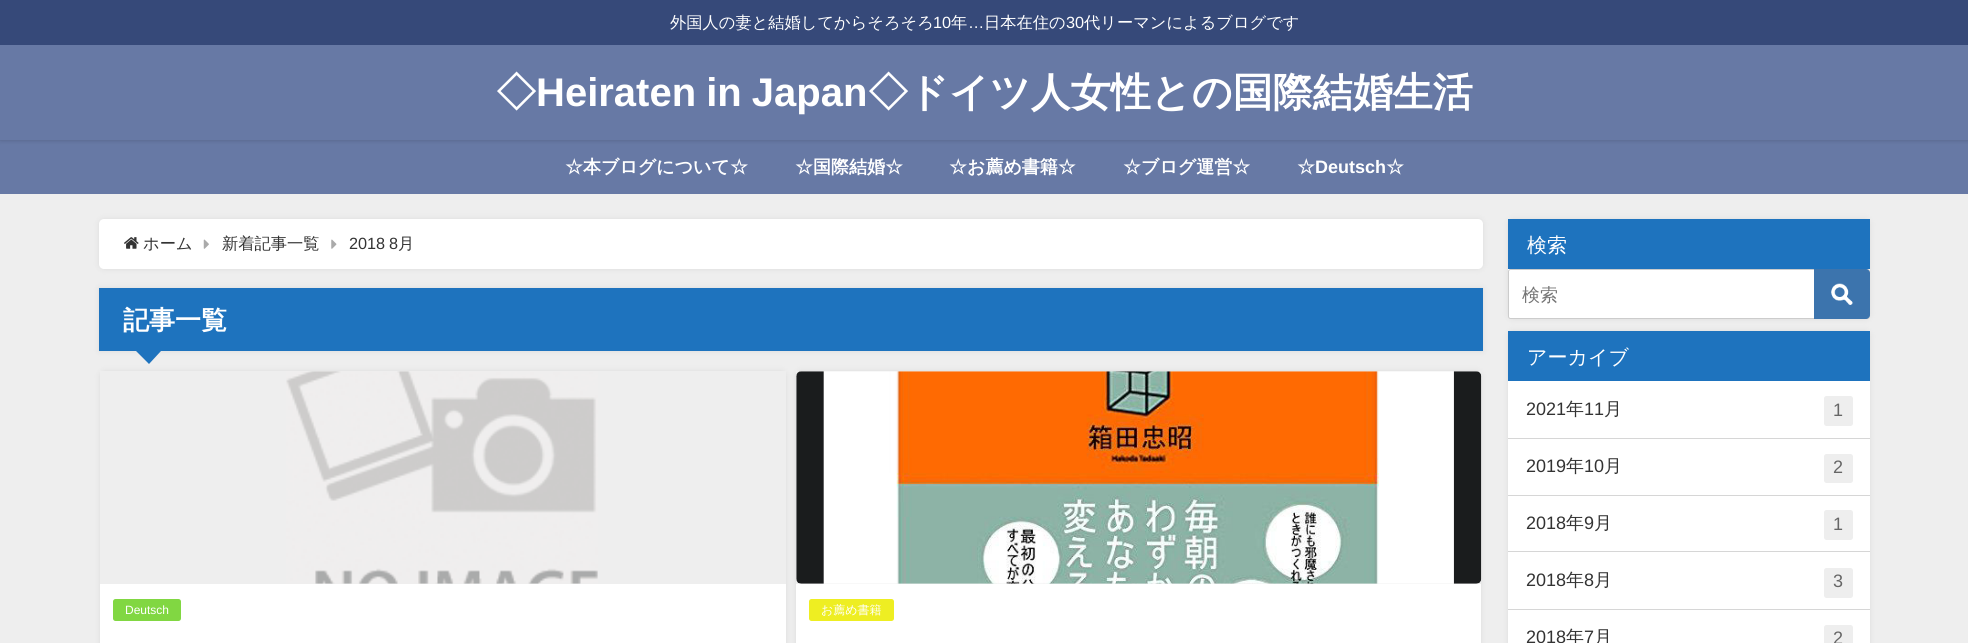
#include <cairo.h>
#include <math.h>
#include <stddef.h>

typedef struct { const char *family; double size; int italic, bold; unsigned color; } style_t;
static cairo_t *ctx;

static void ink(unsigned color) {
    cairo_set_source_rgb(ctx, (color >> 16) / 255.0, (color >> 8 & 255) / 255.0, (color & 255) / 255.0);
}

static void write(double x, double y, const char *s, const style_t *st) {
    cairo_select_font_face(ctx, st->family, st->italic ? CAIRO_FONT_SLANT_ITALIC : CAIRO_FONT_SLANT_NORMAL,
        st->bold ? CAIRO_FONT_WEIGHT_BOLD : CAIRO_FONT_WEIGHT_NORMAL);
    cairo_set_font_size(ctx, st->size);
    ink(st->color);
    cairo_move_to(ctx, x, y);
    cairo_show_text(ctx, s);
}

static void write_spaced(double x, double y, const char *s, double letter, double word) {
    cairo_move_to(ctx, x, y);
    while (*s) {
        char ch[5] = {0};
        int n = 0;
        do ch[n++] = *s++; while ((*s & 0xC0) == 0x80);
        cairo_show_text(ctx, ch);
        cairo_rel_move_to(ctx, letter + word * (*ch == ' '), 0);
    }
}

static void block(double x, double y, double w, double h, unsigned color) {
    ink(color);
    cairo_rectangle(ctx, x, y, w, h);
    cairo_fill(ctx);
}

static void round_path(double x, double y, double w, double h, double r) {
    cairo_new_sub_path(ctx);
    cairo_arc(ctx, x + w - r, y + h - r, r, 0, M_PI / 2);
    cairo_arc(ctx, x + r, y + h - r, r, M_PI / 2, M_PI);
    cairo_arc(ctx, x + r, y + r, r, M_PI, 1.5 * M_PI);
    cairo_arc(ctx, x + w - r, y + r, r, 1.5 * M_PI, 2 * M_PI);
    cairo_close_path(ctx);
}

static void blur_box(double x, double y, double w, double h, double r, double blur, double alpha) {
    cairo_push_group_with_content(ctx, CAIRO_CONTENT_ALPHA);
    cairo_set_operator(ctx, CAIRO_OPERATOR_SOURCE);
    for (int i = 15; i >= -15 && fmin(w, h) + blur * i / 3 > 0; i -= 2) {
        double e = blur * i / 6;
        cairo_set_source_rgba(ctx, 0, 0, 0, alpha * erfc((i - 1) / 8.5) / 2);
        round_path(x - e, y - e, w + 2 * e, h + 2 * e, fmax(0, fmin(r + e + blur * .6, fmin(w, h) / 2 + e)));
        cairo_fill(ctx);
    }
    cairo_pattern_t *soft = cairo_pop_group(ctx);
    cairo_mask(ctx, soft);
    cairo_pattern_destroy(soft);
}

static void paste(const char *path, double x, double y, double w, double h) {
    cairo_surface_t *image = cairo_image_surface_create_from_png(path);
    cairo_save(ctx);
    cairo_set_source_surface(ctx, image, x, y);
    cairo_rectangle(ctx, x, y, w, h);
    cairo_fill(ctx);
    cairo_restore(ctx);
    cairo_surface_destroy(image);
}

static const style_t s1 = {"WenQuanYi Zen Hei Medium", 16.25, 0, 0, 0xffffff};
static const style_t s2 = {"Liberation Sans", 16.25, 0, 0, 0xffffff};
static const style_t s3 = {"WenQuanYi Zen Hei", 40, 0, 1, 0xffffff};
static const style_t s4 = {"WenQuanYi Zen Hei", 18, 0, 1, 0xffffff};
static const style_t s5 = {"Liberation Sans", 18, 0, 1, 0xffffff};
static const style_t s6 = {"WenQuanYi Zen Hei Medium", 16.25, 0, 0, 0x333333};
static const style_t s7 = {"Liberation Sans", 16.25, 0, 0, 0x333333};
static const style_t s8 = {"WenQuanYi Zen Hei", 26, 0, 1, 0xffffff};
static const style_t s9 = {"Liberation Sans", 12, 0, 0, 0xffffff};
static const style_t s10 = {"WenQuanYi Zen Hei Medium", 12, 0, 0, 0xffffff};
static const style_t s11 = {"WenQuanYi Zen Hei Medium", 20, 0, 0, 0xffffff};
static const style_t s12 = {"WenQuanYi Zen Hei Medium", 18, 0, 0, 0x757575};
static const style_t s13 = {"Liberation Sans", 18, 0, 0, 0x333333};
static const style_t s14 = {"WenQuanYi Zen Hei Medium", 18, 0, 0, 0x333333};
static const style_t s15 = {"Liberation Sans", 18, 0, 0, 0x666666};

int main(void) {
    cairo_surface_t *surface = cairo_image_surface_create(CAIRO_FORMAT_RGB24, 1968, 643);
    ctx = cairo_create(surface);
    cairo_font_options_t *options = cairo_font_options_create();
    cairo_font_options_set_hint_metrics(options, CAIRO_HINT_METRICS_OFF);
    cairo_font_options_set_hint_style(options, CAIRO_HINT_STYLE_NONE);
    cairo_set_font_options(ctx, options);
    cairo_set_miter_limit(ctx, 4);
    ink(0xeeeeee);
    cairo_paint(ctx);
    block(0, 140, 1968, 54, 0x6779a5);
    ink(0x000000);
    blur_box(0, 0, 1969, 140, 0, 2.5, 0.2);
    block(0, 45, 1968, 95, 0x6779a5);
    block(0, 0, 1968, 45, 0x364979);
    write(670, 28, "外国人の妻と結婚してからそろそろ", &s1);
    write(933, 28, "10", &s2);
    write(951, 28, "年", &s1);
    write(968, 28, "…", &s2);
    write(984, 28, "日本在住の", &s1);
    write(1066, 28, "30", &s2);
    write(1084, 28, "代リーマンによるブログです", &s1);
    write(496, 106, "◇", &s3);
    cairo_select_font_face(ctx, "Liberation Sans", CAIRO_FONT_SLANT_NORMAL, CAIRO_FONT_WEIGHT_BOLD);
    write_spaced(536, 106, "Heiraten in Japan", 0, -1);
    write(868, 106, "◇ドイツ人女性との国際結婚生活", &s3);
    write(565, 173, "☆本ブログについて☆", &s4);
    write(795, 173, "☆国際結婚☆", &s4);
    write(949, 173, "☆お薦め書籍☆", &s4);
    write(1123, 173, "☆ブログ運営☆", &s4);
    write(1297, 173, "☆", &s4);
    write(1315, 173, "Deutsch", &s5);
    write(1386, 173, "☆", &s4);
    ink(0x969696);
    blur_box(99, 219, 1384, 50, 5, 3, 0.2);
    ink(0xffffff);
    round_path(99, 219, 1384, 50, 5);
    cairo_fill(ctx);
    paste("pic1.png", 124, 237, 15, 12);
    write(143, 249, "ホーム", &s6);
    paste("pic2.png", 203, 239, 6, 10);
    write(222, 249, "新着記事一覧", &s6);
    paste("pic3.png", 331, 239, 6, 10);
    write(349, 249, "2018", &s7);
    write(389, 249, "8", &s7);
    write(398, 249, "月", &s6);
    ink(0x969696);
    blur_box(99, 288, 1384, 63, 0, 3, 0.2);
    block(99, 288, 1384, 63, 0x1e73be);
    write(123, 329, "記事一覧", &s8);
    ink(0x1e73be);
    cairo_new_path(ctx);
    cairo_move_to(ctx, 136, 351);
    cairo_line_to(ctx, 161, 351);
    cairo_line_to(ctx, 149, 364);
    cairo_close_path(ctx);
    cairo_fill(ctx);
    ink(0x969696);
    blur_box(100, 371, 686, 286, 5, 3, 0.2);
    block(100, 584, 686, 59, 0xffffff);
    block(100, 371, 686, 213, 0xeeeeee);
    paste("pic4.png", 286, 371, 312, 213);
    ink(0x81d742);
    round_path(113, 599, 68, 22, 2.5);
    cairo_fill(ctx);
    write(125, 614, "Deutsch", &s9);
    ink(0x969696);
    blur_box(796, 371, 685, 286, 5, 3, 0.2);
    block(796, 584, 685, 59, 0xffffff);
    block(796, 371, 685, 213, 0xeeeeee);
    paste("pic5.png", 796, 371, 686, 213);
    ink(0xeeee22);
    round_path(809, 599, 85, 22, 2.5);
    cairo_fill(ctx);
    write(821, 614, "お薦め書籍", &s10);
    ink(0x969696);
    blur_box(1508, 219, 362, 100, 5, 3, 0.2);
    ink(0xffffff);
    round_path(1508, 219, 362, 100, 5);
    cairo_fill(ctx);
    block(1508, 219, 362, 50, 0x1e73be);
    write(1527, 252, "検索", &s11);
    round_path(1508.5, 269.5, 361, 49, 2);
    cairo_fill_preserve(ctx);
    ink(0xcccccc);
    cairo_set_line_width(ctx, 1);
    cairo_stroke(ctx);
    write(1522, 301, "検索", &s12);
    ink(0x3c74ad);
    cairo_new_path(ctx);
    cairo_move_to(ctx, 1814, 269);
    cairo_line_to(ctx, 1866, 269);
    cairo_curve_to(ctx, 1868, 269, 1870, 271, 1870, 273);
    cairo_line_to(ctx, 1870, 315);
    cairo_curve_to(ctx, 1870, 317, 1868, 319, 1866, 319);
    cairo_line_to(ctx, 1814, 319);
    cairo_close_path(ctx);
    cairo_fill(ctx);
    paste("pic6.png", 1831, 283, 22, 22);
    ink(0x969696);
    blur_box(1508, 331, 362, 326, 5, 3, 0.2);
    block(1508, 381, 362, 262, 0xffffff);
    block(1508, 331, 362, 50, 0x1e73be);
    write(1527, 364, "アーカイブ", &s11);
    block(1508, 438, 362, 1, 0xd6d6d6);
    write(1526, 415, "2021", &s13);
    write(1566, 415, "年", &s14);
    write(1584, 415, "11", &s13);
    write(1604, 415, "月", &s14);
    ink(0xeeeeee);
    round_path(1824, 396, 29, 30, 2.5);
    cairo_fill(ctx);
    write(1833, 416, "1", &s15);
    block(1508, 495, 362, 1, 0xd6d6d6);
    write(1526, 472, "2019", &s13);
    write(1566, 472, "年", &s14);
    write(1584, 472, "10", &s13);
    write(1604, 472, "月", &s14);
    ink(0xeeeeee);
    round_path(1824, 454, 29, 29, 2.5);
    cairo_fill(ctx);
    write(1833, 473, "2", &s15);
    block(1508, 551, 362, 1, 0xd6d6d6);
    write(1526, 529, "2018", &s13);
    write(1566, 529, "年", &s14);
    write(1584, 529, "9", &s13);
    write(1594, 529, "月", &s14);
    ink(0xeeeeee);
    round_path(1824, 510, 29, 30, 2.5);
    cairo_fill(ctx);
    write(1833, 530, "1", &s15);
    block(1508, 609, 362, 1, 0xd6d6d6);
    write(1526, 586, "2018", &s13);
    write(1566, 586, "年", &s14);
    write(1584, 586, "8", &s13);
    write(1594, 586, "月", &s14);
    ink(0xeeeeee);
    round_path(1824, 568, 29, 30, 2.5);
    cairo_fill(ctx);
    write(1833, 587, "3", &s15);
    write(1526, 643, "2018", &s13);
    write(1566, 643, "年", &s14);
    write(1584, 643, "7", &s13);
    write(1594, 643, "月", &s14);
    ink(0xeeeeee);
    round_path(1824, 625, 29, 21, 2.5);
    cairo_fill(ctx);
    write(1833, 644, "2", &s15);
    cairo_surface_write_to_png(surface, "screenshot.png");
    cairo_font_options_destroy(options);
    cairo_destroy(ctx);
    cairo_surface_destroy(surface);
    return 0;
}
